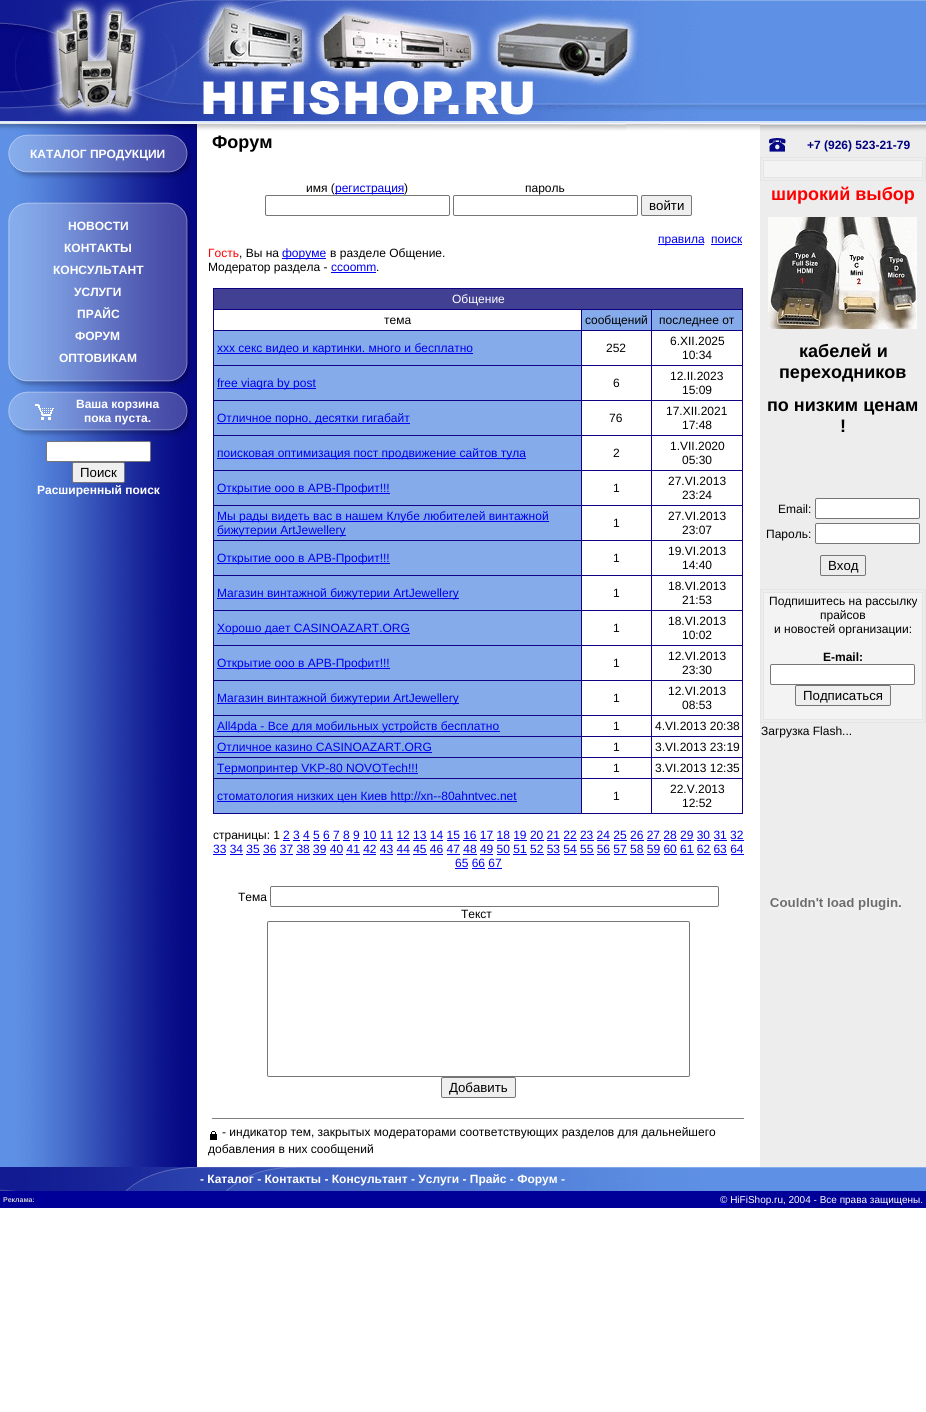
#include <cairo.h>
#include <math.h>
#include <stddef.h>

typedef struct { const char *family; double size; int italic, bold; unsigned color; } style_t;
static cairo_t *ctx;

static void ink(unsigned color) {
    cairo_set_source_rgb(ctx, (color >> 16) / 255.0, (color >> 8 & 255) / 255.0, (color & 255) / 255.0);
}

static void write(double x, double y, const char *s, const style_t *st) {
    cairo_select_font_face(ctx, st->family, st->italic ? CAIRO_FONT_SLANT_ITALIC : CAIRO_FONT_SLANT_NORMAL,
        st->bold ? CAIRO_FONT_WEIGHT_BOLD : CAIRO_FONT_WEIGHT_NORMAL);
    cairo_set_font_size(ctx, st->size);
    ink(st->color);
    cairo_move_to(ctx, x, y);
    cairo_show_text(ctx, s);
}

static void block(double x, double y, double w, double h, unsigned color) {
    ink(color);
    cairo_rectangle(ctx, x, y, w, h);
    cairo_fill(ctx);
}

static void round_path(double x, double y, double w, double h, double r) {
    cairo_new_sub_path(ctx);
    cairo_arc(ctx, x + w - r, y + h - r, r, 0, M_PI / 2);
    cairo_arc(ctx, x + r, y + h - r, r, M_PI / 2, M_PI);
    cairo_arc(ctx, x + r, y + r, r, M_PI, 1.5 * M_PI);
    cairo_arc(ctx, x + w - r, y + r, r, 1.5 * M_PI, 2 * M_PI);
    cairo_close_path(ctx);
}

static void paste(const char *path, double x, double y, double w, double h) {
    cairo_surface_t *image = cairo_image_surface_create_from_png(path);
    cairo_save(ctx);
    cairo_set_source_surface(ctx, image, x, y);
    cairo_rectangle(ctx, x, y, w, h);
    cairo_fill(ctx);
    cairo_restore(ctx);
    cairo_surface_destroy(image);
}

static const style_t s1 = {"Liberation Sans", 12, 0, 1, 0xffffff};
static const style_t s2 = {"Liberation Sans", 13.25, 0, 0, 0x000000};
static const style_t s3 = {"Liberation Sans", 18, 0, 1, 0x000000};
static const style_t s4 = {"Liberation Sans", 12, 0, 0, 0x000000};
static const style_t s5 = {"Liberation Sans", 12, 0, 0, 0x0000ee};
static const style_t s6 = {"Liberation Sans", 12, 0, 0, 0xff0000};
static const style_t s7 = {"Liberation Sans", 12, 0, 0, 0xffffff};
static const style_t s8 = {"Liberation Sans", 12, 0, 1, 0x000080};
static const style_t s9 = {"Liberation Sans", 18, 0, 1, 0xff0000};
static const style_t s10 = {"Liberation Sans", 12, 0, 1, 0x000000};
static const style_t s11 = {"Liberation Sans", 7, 0, 1, 0xcccccc};
static const style_t s12 = {"Liberation Sans", 10, 0, 0, 0xffffff};

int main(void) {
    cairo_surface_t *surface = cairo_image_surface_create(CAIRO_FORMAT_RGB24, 926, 1412);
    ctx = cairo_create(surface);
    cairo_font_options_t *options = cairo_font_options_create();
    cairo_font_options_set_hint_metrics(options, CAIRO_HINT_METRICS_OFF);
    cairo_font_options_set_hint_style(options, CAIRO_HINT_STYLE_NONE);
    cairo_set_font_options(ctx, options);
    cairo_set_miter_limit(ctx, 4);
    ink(0xffffff);
    cairo_paint(ctx);
    paste("pic1.png", 642, 0, 284, 121);
    paste("pic2.png", 0, 0, 197, 121);
    paste("pic3.png", 197, 0, 445, 121);
    paste("pic4.png", 0, 121, 197, 11);
    paste("pic5.png", 197, 121, 563, 10);
    paste("pic6.png", 760, 121, 166, 11);
    paste("pic7.png", 0, 132, 197, 1035);
    paste("pic8.png", 8, 132, 19, 21);
    paste("pic9.png", 169, 132, 23, 21);
    paste("pic10.png", 27, 136, 142, 1);
    paste("pic11.png", 27, 132, 142, 4);
    paste("pic12.png", 27, 137, 142, 33);
    write(30, 158, "КАТАЛОГ ПРОДУКЦИИ", &s1);
    paste("pic10.png", 27, 170, 142, 1);
    paste("pic13.png", 27, 171, 142, 9);
    paste("pic14.png", 8, 153, 19, 1);
    paste("pic15.png", 169, 153, 23, 1);
    paste("pic16.png", 8, 154, 19, 26);
    paste("pic17.png", 169, 154, 24, 26);
    paste("pic18.png", 8, 221, 19, 62);
    paste("pic8.png", 8, 200, 19, 21);
    paste("pic10.png", 27, 204, 142, 1);
    paste("pic11.png", 27, 200, 142, 4);
    paste("pic19.png", 27, 205, 142, 174);
    write(68, 230, "НОВОСТИ", &s1);
    write(64, 252, "КОНТАКТЫ", &s1);
    write(53, 274, "КОНСУЛЬТАНТ", &s1);
    write(74, 296, "УСЛУГИ", &s1);
    write(77, 318, "ПРАЙС", &s1);
    write(75, 340, "ФОРУМ", &s1);
    write(59, 362, "ОПТОВИКАМ", &s1);
    paste("pic10.png", 27, 379, 142, 1);
    paste("pic13.png", 27, 380, 142, 9);
    paste("pic20.png", 169, 221, 23, 62);
    paste("pic9.png", 169, 200, 23, 21);
    paste("pic21.png", 8, 283, 19, 4);
    paste("pic22.png", 169, 283, 23, 4);
    paste("pic23.png", 8, 287, 19, 76);
    paste("pic16.png", 8, 363, 19, 26);
    paste("pic24.png", 169, 287, 23, 76);
    paste("pic17.png", 169, 363, 24, 26);
    paste("pic8.png", 8, 389, 19, 21);
    paste("pic10.png", 27, 393, 142, 1);
    paste("pic11.png", 27, 389, 142, 4);
    paste("pic25.png", 27, 394, 142, 34);
    paste("pic26.png", 35, 404, 19, 16);
    write(76, 408, "Ваша корзина", &s1);
    write(84, 422, "пока пуста.", &s1);
    paste("pic10.png", 27, 428, 142, 1);
    paste("pic13.png", 27, 429, 142, 9);
    paste("pic9.png", 169, 389, 23, 21);
    paste("pic14.png", 8, 410, 19, 1);
    paste("pic15.png", 169, 410, 23, 1);
    paste("pic14.png", 8, 411, 19, 1);
    paste("pic16.png", 8, 412, 19, 26);
    paste("pic15.png", 169, 411, 23, 1);
    paste("pic17.png", 169, 412, 24, 26);
    round_path(46.5, 441.5, 104, 20, 1.5);
    cairo_fill_preserve(ctx);
    ink(0x767676);
    cairo_set_line_width(ctx, 1);
    cairo_stroke(ctx);
    ink(0xefefef);
    round_path(72.5, 462.5, 52, 20, 1.5);
    cairo_fill_preserve(ctx);
    ink(0x767676);
    cairo_stroke(ctx);
    write(80, 477, "Поиск", &s2);
    write(37, 494, "Расширенный поиск", &s1);
    write(212, 148, "Форум", &s3);
    write(306, 192, "имя (", &s4);
    block(335, 193, 69, 1, 0x0000ee);
    write(335, 192, "регистрация", &s5);
    write(404, 192, ")", &s4);
    round_path(265.5, 195.5, 184, 20, 1.5);
    ink(0x767676);
    cairo_stroke(ctx);
    write(525, 192, "пароль", &s4);
    round_path(453.5, 195.5, 184, 20, 1.5);
    ink(0x767676);
    cairo_stroke(ctx);
    ink(0xefefef);
    round_path(641.5, 195.5, 50, 20, 1.5);
    cairo_fill_preserve(ctx);
    ink(0x767676);
    cairo_stroke(ctx);
    write(649, 210, "войти", &s2);
    block(658, 244, 46, 1, 0x0000ee);
    write(658, 243, "правила", &s5);
    write(711, 243, "поиск", &s5);
    block(711, 244, 31, 1, 0x0000ee);
    write(208, 257, "Гость", &s6);
    write(239, 257, ", Вы на", &s4);
    block(282, 258, 44, 1, 0x0000ee);
    write(282, 257, "форуме", &s5);
    write(330, 257, "в разделе Общение.", &s4);
    write(208, 271, "Модератор раздела -", &s4);
    write(331, 271, "ccoomm", &s5);
    block(331, 272, 45, 1, 0x0000ee);
    write(376, 271, ".", &s4);
    block(213, 288, 530, 526, 0x0f0084);
    block(214, 289, 528, 20, 0x424093);
    write(452, 303, "Общение", &s7);
    block(214, 310, 367, 20, 0xffffff);
    write(384, 324, "тема", &s4);
    block(582, 310, 69, 20, 0x85abea);
    write(585, 324, "сообщений", &s4);
    block(652, 310, 90, 20, 0x85abea);
    write(659, 324, "последнее от", &s4);
    block(214, 331, 367, 34, 0x85abea);
    block(217, 353, 256, 1, 0x0000ee);
    write(217, 352, "xxx секс видео и картинки. много и бесплатно", &s5);
    block(582, 331, 69, 34, 0xffffff);
    write(606, 352, "252", &s4);
    block(652, 331, 90, 34, 0xffffff);
    write(670, 345, "6.XII.2025", &s4);
    write(682, 359, "10:34", &s4);
    block(214, 366, 367, 34, 0x85abea);
    block(217, 388, 99, 1, 0x0000ee);
    write(217, 387, "free viagra by post", &s5);
    block(582, 366, 69, 34, 0xffffff);
    write(613, 387, "6", &s4);
    block(652, 366, 90, 34, 0xffffff);
    write(670, 380, "12.II.2023", &s4);
    write(682, 394, "15:09", &s4);
    block(214, 401, 367, 34, 0x85abea);
    block(217, 423, 193, 1, 0x0000ee);
    write(217, 422, "Отличное порно, десятки гигабайт", &s5);
    block(582, 401, 69, 34, 0xffffff);
    write(609, 422, "76", &s4);
    block(652, 401, 90, 34, 0xffffff);
    write(666, 415, "17.XII.2021", &s4);
    write(682, 429, "17:48", &s4);
    block(214, 436, 367, 34, 0x85abea);
    block(217, 458, 309, 1, 0x0000ee);
    write(217, 457, "поисковая оптимизация пост продвижение сайтов тула", &s5);
    block(582, 436, 69, 34, 0xffffff);
    write(613, 457, "2", &s4);
    block(652, 436, 90, 34, 0xffffff);
    write(670, 450, "1.VII.2020", &s4);
    write(682, 464, "05:30", &s4);
    block(214, 471, 367, 34, 0x85abea);
    block(217, 493, 173, 1, 0x0000ee);
    write(217, 492, "Открытие ооо в АРВ-Профит!!!", &s5);
    block(582, 471, 69, 34, 0xffffff);
    write(613, 492, "1", &s4);
    block(652, 471, 90, 34, 0xffffff);
    write(668, 485, "27.VI.2013", &s4);
    write(682, 499, "23:24", &s4);
    block(214, 506, 367, 34, 0x85abea);
    block(217, 521, 332, 1, 0x0000ee);
    write(217, 520, "Мы рады видеть вас в нашем Клубе любителей винтажной", &s5);
    block(217, 535, 129, 1, 0x0000ee);
    write(217, 534, "бижутерии ArtJewellery", &s5);
    block(582, 506, 69, 34, 0xffffff);
    write(613, 527, "1", &s4);
    block(652, 506, 90, 34, 0xffffff);
    write(668, 520, "27.VI.2013", &s4);
    write(682, 534, "23:07", &s4);
    block(214, 541, 367, 34, 0x85abea);
    block(217, 563, 173, 1, 0x0000ee);
    write(217, 562, "Открытие ооо в АРВ-Профит!!!", &s5);
    block(582, 541, 69, 34, 0xffffff);
    write(613, 562, "1", &s4);
    block(652, 541, 90, 34, 0xffffff);
    write(668, 555, "19.VI.2013", &s4);
    write(682, 569, "14:40", &s4);
    block(214, 576, 367, 34, 0x85abea);
    block(217, 598, 242, 1, 0x0000ee);
    write(217, 597, "Магазин винтажной бижутерии ArtJewellery", &s5);
    block(582, 576, 69, 34, 0xffffff);
    write(613, 597, "1", &s4);
    block(652, 576, 90, 34, 0xffffff);
    write(668, 590, "18.VI.2013", &s4);
    write(682, 604, "21:53", &s4);
    block(214, 611, 367, 34, 0x85abea);
    block(217, 633, 193, 1, 0x0000ee);
    write(217, 632, "Хорошо дает CASINOAZART.ORG", &s5);
    block(582, 611, 69, 34, 0xffffff);
    write(613, 632, "1", &s4);
    block(652, 611, 90, 34, 0xffffff);
    write(668, 625, "18.VI.2013", &s4);
    write(682, 639, "10:02", &s4);
    block(214, 646, 367, 34, 0x85abea);
    block(217, 668, 173, 1, 0x0000ee);
    write(217, 667, "Открытие ооо в АРВ-Профит!!!", &s5);
    block(582, 646, 69, 34, 0xffffff);
    write(613, 667, "1", &s4);
    block(652, 646, 90, 34, 0xffffff);
    write(668, 660, "12.VI.2013", &s4);
    write(682, 674, "23:30", &s4);
    block(214, 681, 367, 34, 0x85abea);
    block(217, 703, 242, 1, 0x0000ee);
    write(217, 702, "Магазин винтажной бижутерии ArtJewellery", &s5);
    block(582, 681, 69, 34, 0xffffff);
    write(613, 702, "1", &s4);
    block(652, 681, 90, 34, 0xffffff);
    write(668, 695, "12.VI.2013", &s4);
    write(682, 709, "08:53", &s4);
    block(214, 716, 367, 20, 0x85abea);
    block(217, 731, 283, 1, 0x0000ee);
    write(217, 730, "All4pda - Все для мобильных устройств бесплатно", &s5);
    block(582, 716, 69, 20, 0xffffff);
    write(613, 730, "1", &s4);
    block(652, 716, 90, 20, 0xffffff);
    write(655, 730, "4.VI.2013 20:38", &s4);
    block(214, 737, 367, 20, 0x85abea);
    write(217, 751, "Отличное казино CASINOAZART.ORG", &s5);
    block(217, 752, 215, 1, 0x0000ee);
    block(582, 737, 69, 20, 0xffffff);
    write(613, 751, "1", &s4);
    block(652, 737, 90, 20, 0xffffff);
    write(655, 751, "3.VI.2013 23:19", &s4);
    block(214, 758, 367, 20, 0x85abea);
    block(217, 773, 201, 1, 0x0000ee);
    write(217, 772, "Термопринтер VKP-80 NOVOTech!!!", &s5);
    block(582, 758, 69, 20, 0xffffff);
    write(613, 772, "1", &s4);
    block(652, 758, 90, 20, 0xffffff);
    write(655, 772, "3.VI.2013 12:35", &s4);
    block(214, 779, 367, 34, 0x85abea);
    block(217, 801, 300, 1, 0x0000ee);
    write(217, 800, "стоматология низких цен Киев http://xn--80ahntvec.net", &s5);
    block(582, 779, 69, 34, 0xffffff);
    write(613, 800, "1", &s4);
    block(652, 779, 90, 34, 0xffffff);
    write(670, 793, "22.V.2013", &s4);
    write(682, 807, "12:52", &s4);
    write(213, 839, "страницы: 1", &s4);
    write(283, 839, "2 3 4 5 6 7 8 9 10 11 12 13 14 15 16 17 18 19 20 21 22 23 24 25 26 27 28 29 30 31 32", &s5);
    block(283, 840, 7, 1, 0x0000ee);
    block(293, 840, 7, 1, 0x0000ee);
    block(303, 840, 7, 1, 0x0000ee);
    block(313, 840, 7, 1, 0x0000ee);
    block(323, 840, 7, 1, 0x0000ee);
    block(333, 840, 7, 1, 0x0000ee);
    block(343, 840, 7, 1, 0x0000ee);
    block(353, 840, 7, 1, 0x0000ee);
    block(363, 840, 14, 1, 0x0000ee);
    block(380, 840, 13, 1, 0x0000ee);
    block(397, 840, 13, 1, 0x0000ee);
    block(413, 840, 14, 1, 0x0000ee);
    block(430, 840, 13, 1, 0x0000ee);
    block(447, 840, 13, 1, 0x0000ee);
    block(463, 840, 14, 1, 0x0000ee);
    block(480, 840, 14, 1, 0x0000ee);
    block(497, 840, 13, 1, 0x0000ee);
    block(514, 840, 13, 1, 0x0000ee);
    block(530, 840, 14, 1, 0x0000ee);
    block(547, 840, 13, 1, 0x0000ee);
    block(564, 840, 13, 1, 0x0000ee);
    block(580, 840, 14, 1, 0x0000ee);
    block(597, 840, 13, 1, 0x0000ee);
    block(614, 840, 13, 1, 0x0000ee);
    block(631, 840, 13, 1, 0x0000ee);
    block(647, 840, 14, 1, 0x0000ee);
    block(664, 840, 13, 1, 0x0000ee);
    block(681, 840, 13, 1, 0x0000ee);
    block(697, 840, 14, 1, 0x0000ee);
    block(714, 840, 13, 1, 0x0000ee);
    block(731, 840, 13, 1, 0x0000ee);
    write(213, 853, "33 34 35 36 37 38 39 40 41 42 43 44 45 46 47 48 49 50 51 52 53 54 55 56 57 58 59 60 61 62 63 64", &s5);
    block(213, 854, 13, 1, 0x0000ee);
    block(230, 854, 13, 1, 0x0000ee);
    block(246, 854, 14, 1, 0x0000ee);
    block(263, 854, 13, 1, 0x0000ee);
    block(280, 854, 13, 1, 0x0000ee);
    block(296, 854, 14, 1, 0x0000ee);
    block(313, 854, 13, 1, 0x0000ee);
    block(330, 854, 13, 1, 0x0000ee);
    block(346, 854, 14, 1, 0x0000ee);
    block(363, 854, 13, 1, 0x0000ee);
    block(380, 854, 13, 1, 0x0000ee);
    block(397, 854, 13, 1, 0x0000ee);
    block(413, 854, 14, 1, 0x0000ee);
    block(430, 854, 13, 1, 0x0000ee);
    block(447, 854, 13, 1, 0x0000ee);
    block(463, 854, 14, 1, 0x0000ee);
    block(480, 854, 13, 1, 0x0000ee);
    block(497, 854, 13, 1, 0x0000ee);
    block(513, 854, 14, 1, 0x0000ee);
    block(530, 854, 14, 1, 0x0000ee);
    block(547, 854, 13, 1, 0x0000ee);
    block(564, 854, 13, 1, 0x0000ee);
    block(580, 854, 14, 1, 0x0000ee);
    block(597, 854, 13, 1, 0x0000ee);
    block(614, 854, 13, 1, 0x0000ee);
    block(630, 854, 14, 1, 0x0000ee);
    block(647, 854, 13, 1, 0x0000ee);
    block(664, 854, 13, 1, 0x0000ee);
    block(680, 854, 14, 1, 0x0000ee);
    block(697, 854, 14, 1, 0x0000ee);
    block(714, 854, 13, 1, 0x0000ee);
    block(731, 854, 13, 1, 0x0000ee);
    write(455, 867, "65 66 67", &s5);
    block(455, 868, 13, 1, 0x0000ee);
    block(472, 868, 13, 1, 0x0000ee);
    block(488, 868, 14, 1, 0x0000ee);
    write(238, 901, "Тема", &s4);
    round_path(270.5, 886.5, 448, 20, 1.5);
    ink(0x767676);
    cairo_stroke(ctx);
    write(461, 918, "Текст", &s4);
    round_path(267.5, 921.5, 422, 155, 1.5);
    ink(0x767676);
    cairo_stroke(ctx);
    ink(0xefefef);
    round_path(441.5, 1077.5, 74, 20, 1.5);
    cairo_fill_preserve(ctx);
    ink(0x767676);
    cairo_stroke(ctx);
    write(449, 1092, "Добавить", &s2);
    block(212, 1118, 532, 1, 0x808080);
    paste("pic27.png", 210, 1131, 7, 9);
    write(222, 1136, "- индикатор тем, закрытых модераторами соответствующих разделов для дальнейшего", &s4);
    write(208, 1153, "добавления в них сообщений", &s4);
    block(760, 132, 166, 1035, 0xededed);
    paste("pic28.png", 768, 138, 20, 16);
    write(807, 149, "+7 (926) 523-21-79", &s8);
    cairo_rectangle(ctx, 760.5, 157.5, 165, 23);
    ink(0xe5e5e5);
    cairo_stroke(ctx);
    ink(0xf3f3f3);
    cairo_rectangle(ctx, 763.5, 160.5, 159, 17);
    cairo_fill_preserve(ctx);
    ink(0xe5e5e5);
    cairo_stroke(ctx);
    write(771, 200, "широкий выбор", &s9);
    paste("pic29.png", 768, 217, 149, 112);
    write(799, 357, "кабелей и", &s3);
    write(779, 378, "переходников", &s3);
    write(767, 411, "по низким ценам", &s3);
    write(840, 432, "!", &s3);
    write(778, 513, "Email:", &s4);
    ink(0xffffff);
    round_path(815.5, 498.5, 104, 20, 1.5);
    cairo_fill_preserve(ctx);
    ink(0x767676);
    cairo_stroke(ctx);
    write(766, 538, "Пароль:", &s4);
    ink(0xffffff);
    round_path(815.5, 523.5, 104, 20, 1.5);
    cairo_fill_preserve(ctx);
    ink(0x767676);
    cairo_stroke(ctx);
    round_path(820.5, 555.5, 45, 20, 1.5);
    cairo_stroke(ctx);
    write(828, 570, "Вход", &s2);
    cairo_rectangle(ctx, 760.5, 589.5, 165, 133);
    ink(0xe5e5e5);
    cairo_stroke(ctx);
    ink(0xf3f3f3);
    cairo_rectangle(ctx, 763.5, 592.5, 159, 127);
    cairo_fill_preserve(ctx);
    ink(0xe5e5e5);
    cairo_stroke(ctx);
    write(769, 605, "Подпишитесь на рассылку", &s4);
    write(820, 619, "прайсов", &s4);
    write(774, 633, "и новостей организации:", &s4);
    write(823, 661, "E-mail:", &s10);
    ink(0xffffff);
    round_path(770.5, 664.5, 144, 20, 1.5);
    cairo_fill_preserve(ctx);
    ink(0x767676);
    cairo_stroke(ctx);
    ink(0xefefef);
    round_path(795.5, 685.5, 95, 20, 1.5);
    cairo_fill_preserve(ctx);
    ink(0x767676);
    cairo_stroke(ctx);
    write(803, 700, "Подписаться", &s2);
    write(761, 735, "Загрузка Flash...", &s4);
    paste("pic30.png", 770, 898, 131, 12);
    paste("pic31.png", 0, 1167, 926, 24);
    write(200, 1183, "- Каталог - Контакты - Консультант - Услуги - Прайс - Форум -", &s1);
    block(0, 1191, 926, 17, 0x000099);
    write(3, 1202, "Реклама:", &s11);
    block(720, 1204, 7, 1, 0x0000ee);
    write(720, 1203, "© HiFiShop.ru, 2004 - Все права защищены.", &s12);
    cairo_surface_write_to_png(surface, "screenshot.png");
    cairo_font_options_destroy(options);
    cairo_destroy(ctx);
    cairo_surface_destroy(surface);
    return 0;
}
